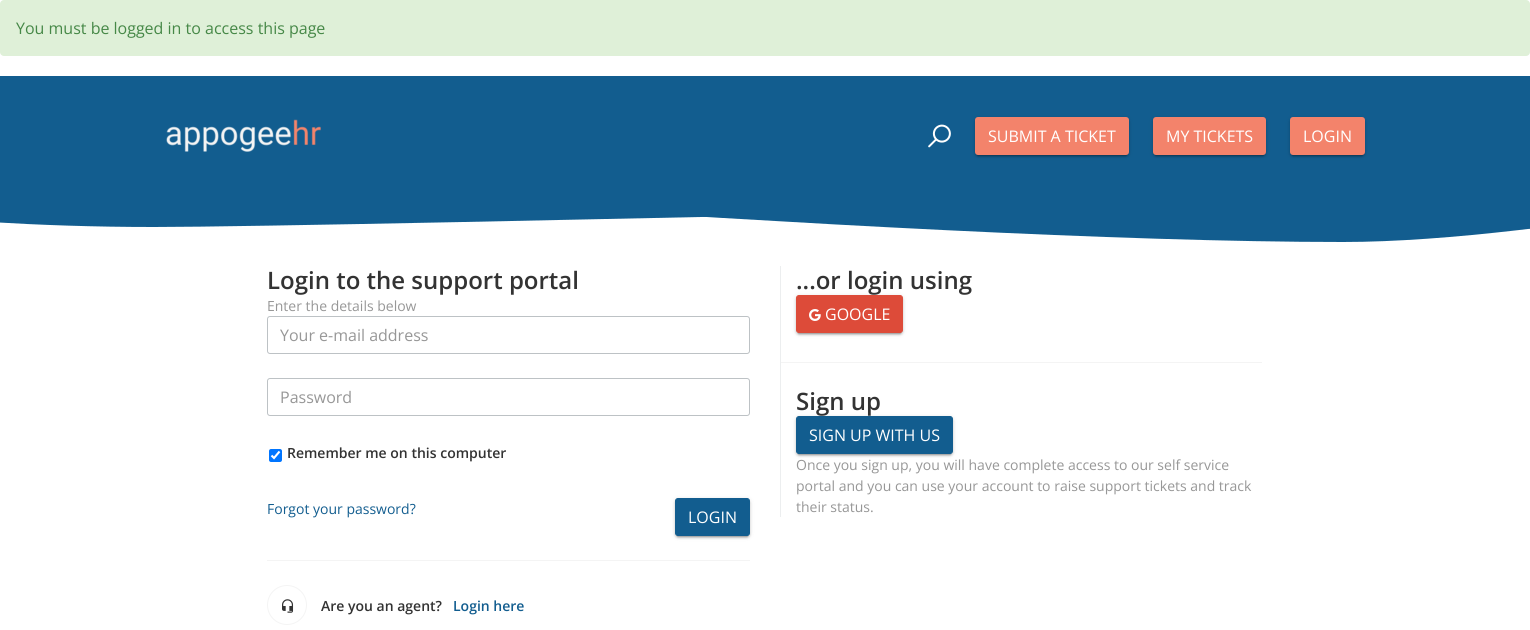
#include <cairo.h>
#include <math.h>
#include <stddef.h>

typedef struct { const char *family; double size; int italic, bold; unsigned color; } style_t;
static cairo_t *ctx;

static void ink(unsigned color) {
    cairo_set_source_rgb(ctx, (color >> 16) / 255.0, (color >> 8 & 255) / 255.0, (color & 255) / 255.0);
}

static void write(double x, double y, const char *s, const style_t *st) {
    cairo_select_font_face(ctx, st->family, st->italic ? CAIRO_FONT_SLANT_ITALIC : CAIRO_FONT_SLANT_NORMAL,
        st->bold ? CAIRO_FONT_WEIGHT_BOLD : CAIRO_FONT_WEIGHT_NORMAL);
    cairo_set_font_size(ctx, st->size);
    ink(st->color);
    cairo_move_to(ctx, x, y);
    cairo_show_text(ctx, s);
}

static void block(double x, double y, double w, double h, unsigned color) {
    ink(color);
    cairo_rectangle(ctx, x, y, w, h);
    cairo_fill(ctx);
}

static void round_path(double x, double y, double w, double h, double r) {
    cairo_new_sub_path(ctx);
    cairo_arc(ctx, x + w - r, y + h - r, r, 0, M_PI / 2);
    cairo_arc(ctx, x + r, y + h - r, r, M_PI / 2, M_PI);
    cairo_arc(ctx, x + r, y + r, r, M_PI, 1.5 * M_PI);
    cairo_arc(ctx, x + w - r, y + r, r, 1.5 * M_PI, 2 * M_PI);
    cairo_close_path(ctx);
}

static void blur_box(double x, double y, double w, double h, double r, double blur, double alpha) {
    cairo_push_group_with_content(ctx, CAIRO_CONTENT_ALPHA);
    cairo_set_operator(ctx, CAIRO_OPERATOR_SOURCE);
    for (int i = 15; i >= -15 && fmin(w, h) + blur * i / 3 > 0; i -= 2) {
        double e = blur * i / 6;
        cairo_set_source_rgba(ctx, 0, 0, 0, alpha * erfc((i - 1) / 8.5) / 2);
        round_path(x - e, y - e, w + 2 * e, h + 2 * e, fmax(0, fmin(r + e + blur * .6, fmin(w, h) / 2 + e)));
        cairo_fill(ctx);
    }
    cairo_pattern_t *soft = cairo_pop_group(ctx);
    cairo_mask(ctx, soft);
    cairo_pattern_destroy(soft);
}

static void paste(const char *path, double x, double y, double w, double h) {
    cairo_surface_t *image = cairo_image_surface_create_from_png(path);
    cairo_save(ctx);
    cairo_set_source_surface(ctx, image, x, y);
    cairo_rectangle(ctx, x, y, w, h);
    cairo_fill(ctx);
    cairo_restore(ctx);
    cairo_surface_destroy(image);
}

static const style_t s1 = {"Open Sans", 16, 0, 0, 0x468847};
static const style_t s2 = {"Open Sans", 16, 0, 0, 0xffffff};
static const style_t s3 = {"Open Sans SemiBold", 24, 0, 0, 0x333333};
static const style_t s4 = {"Open Sans", 14, 0, 0, 0x979797};
static const style_t s5 = {"Open Sans", 16, 0, 0, 0x979797};
static const style_t s6 = {"Open Sans SemiBold", 14, 0, 0, 0x333333};
static const style_t s7 = {"Open Sans", 14, 0, 0, 0x125d8f};
static const style_t s8 = {"Open Sans SemiBold", 14, 0, 0, 0x125d8f};

int main(void) {
    cairo_surface_t *surface = cairo_image_surface_create(CAIRO_FORMAT_RGB24, 1530, 630);
    ctx = cairo_create(surface);
    cairo_font_options_t *options = cairo_font_options_create();
    cairo_font_options_set_hint_metrics(options, CAIRO_HINT_METRICS_OFF);
    cairo_font_options_set_hint_style(options, CAIRO_HINT_STYLE_NONE);
    cairo_set_font_options(ctx, options);
    cairo_set_miter_limit(ctx, 4);
    ink(0xffffff);
    cairo_paint(ctx);
    ink(0xdff0d8);
    round_path(0, 0, 1530, 56, 4);
    cairo_fill(ctx);
    write(16, 34, "You must be logged in to access this page", &s1);
    block(0, 76, 1530, 119, 0x125d8f);
    paste("pic1.png", 166, 119, 155, 33);
    paste("pic2.png", 928, 124, 23, 24);
    ink(0x000000);
    blur_box(975, 118, 154, 38, 3, 2.5, 0.12);
    blur_box(977, 122, 150, 34, 1, 0.5, 0.2);
    blur_box(975, 119, 154, 38, 3, 1, 0.14);
    ink(0xf3836b);
    round_path(975, 117, 154, 38, 3);
    cairo_fill(ctx);
    write(988, 142, "SUBMIT A TICKET", &s2);
    ink(0x000000);
    blur_box(1153, 118, 113, 38, 3, 2.5, 0.12);
    blur_box(1155, 122, 109, 34, 1, 0.5, 0.2);
    blur_box(1153, 119, 113, 38, 3, 1, 0.14);
    ink(0xf3836b);
    round_path(1153, 117, 113, 38, 3);
    cairo_fill(ctx);
    write(1166, 142, "MY TICKETS", &s2);
    ink(0x000000);
    blur_box(1290, 118, 75, 38, 3, 2.5, 0.12);
    blur_box(1292, 122, 71, 34, 1, 0.5, 0.2);
    blur_box(1290, 119, 75, 38, 3, 1, 0.14);
    ink(0xf3836b);
    round_path(1290, 117, 75, 38, 3);
    cairo_fill(ctx);
    write(1303, 142, "LOGIN", &s2);
    ink(0x125d8f);
    cairo_new_path(ctx);
    cairo_move_to(ctx, 154, 227);
    cairo_curve_to(ctx, 333, 227, 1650, 195, 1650, 195);
    cairo_line_to(ctx, -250, 195);
    cairo_curve_to(ctx, -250, 195, -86, 227, 154, 227);
    cairo_close_path(ctx);
    cairo_fill(ctx);
    cairo_save(ctx);
    cairo_rectangle(ctx, 0, 195, 1530, 47);
    cairo_clip(ctx);
    cairo_new_path(ctx);
    cairo_move_to(ctx, 1343, 242);
    cairo_curve_to(ctx, 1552, 242, 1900, 166, 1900, 166);
    cairo_line_to(ctx, 0, 166);
    cairo_curve_to(ctx, 0, 166, 897, 242, 1343, 242);
    cairo_close_path(ctx);
    cairo_fill(ctx);
    cairo_new_path(ctx);
    cairo_move_to(ctx, 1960, 242);
    cairo_curve_to(ctx, 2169, 242, 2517, 166, 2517, 166);
    cairo_line_to(ctx, 617, 166);
    cairo_curve_to(ctx, 617, 166, 1514, 242, 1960, 242);
    cairo_close_path(ctx);
    cairo_fill(ctx);
    cairo_restore(ctx);
    write(267, 289, "Login to the support portal", &s3);
    write(267, 311, "Enter the details below", &s4);
    round_path(267.5, 316.5, 482, 37, 2.5);
    ink(0xbdc2c5);
    cairo_set_line_width(ctx, 1);
    cairo_stroke(ctx);
    write(280, 341, "Your e-mail address", &s5);
    round_path(267.5, 378.5, 482, 37, 2.5);
    ink(0xbdc2c5);
    cairo_stroke(ctx);
    write(280, 403, "Password", &s5);
    ink(0x0075ff);
    round_path(269, 449, 13, 13, 2);
    cairo_fill(ctx);
    cairo_new_path(ctx);
    cairo_move_to(ctx, 271.5, 455.5);
    cairo_line_to(ctx, 274, 458);
    cairo_line_to(ctx, 279.5, 451.5);
    ink(0xffffff);
    cairo_set_line_width(ctx, 2.1);
    cairo_stroke(ctx);
    write(287, 458, "Remember me on this computer", &s6);
    write(267, 514, "Forgot your password?", &s7);
    ink(0x000000);
    blur_box(675, 499, 75, 38, 3, 2.5, 0.12);
    blur_box(677, 503, 71, 34, 1, 0.5, 0.2);
    blur_box(675, 500, 75, 38, 3, 1, 0.14);
    ink(0x125d8f);
    round_path(675.5, 498.5, 74, 37, 2.5);
    cairo_fill_preserve(ctx);
    cairo_set_line_width(ctx, 1);
    cairo_stroke(ctx);
    write(688, 523, "LOGIN", &s2);
    block(267, 560, 483, 1, 0xf4f4f4);
    cairo_new_path(ctx);
    cairo_arc(ctx, 287, 605, 19.5, 0, 2 * M_PI);
    cairo_stroke(ctx);
    paste("pic3.png", 282, 599, 12, 14);
    write(321, 611, "Are you an agent?", &s6);
    write(453, 611, "Login here", &s8);
    block(780, 266, 1, 251, 0xeceeef);
    block(781, 362, 481, 1, 0xf4f4f4);
    write(796, 289, "...or login using", &s3);
    ink(0x000000);
    blur_box(796, 296, 107, 38, 3, 2.5, 0.12);
    blur_box(798, 300, 103, 34, 1, 0.5, 0.2);
    blur_box(796, 297, 107, 38, 3, 1, 0.14);
    ink(0xdd4b39);
    round_path(796.5, 295.5, 106, 37, 2.5);
    cairo_fill_preserve(ctx);
    cairo_stroke(ctx);
    paste("pic4.png", 809, 309, 12, 12);
    write(825, 320, "GOOGLE", &s2);
    write(796, 410, "Sign up", &s3);
    ink(0x000000);
    blur_box(796, 417, 157, 38, 3, 2.5, 0.12);
    blur_box(798, 421, 153, 34, 1, 0.5, 0.2);
    blur_box(796, 418, 157, 38, 3, 1, 0.14);
    ink(0x125d8f);
    round_path(796.5, 416.5, 156, 37, 2.5);
    cairo_fill_preserve(ctx);
    cairo_stroke(ctx);
    write(809, 441, "SIGN UP WITH US", &s2);
    write(796, 470, "Once you sign up, you will have complete access to our self service", &s4);
    write(796, 491, "portal and you can use your account to raise support tickets and track", &s4);
    write(796, 512, "their status.", &s4);
    cairo_surface_write_to_png(surface, "screenshot.png");
    cairo_font_options_destroy(options);
    cairo_destroy(ctx);
    cairo_surface_destroy(surface);
    return 0;
}
